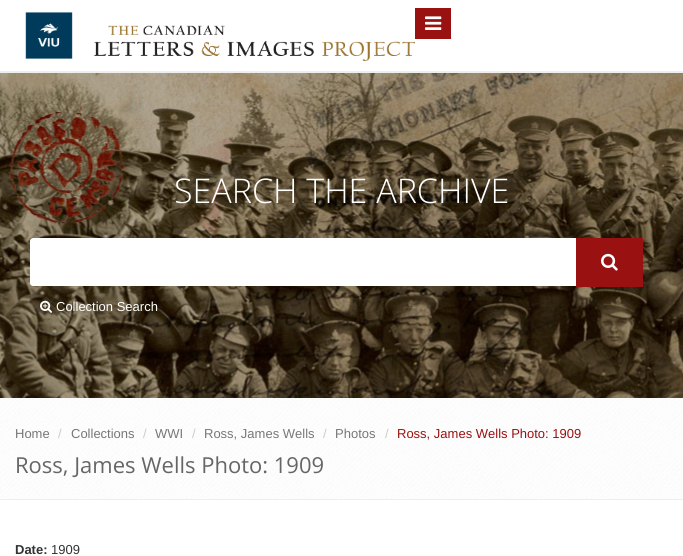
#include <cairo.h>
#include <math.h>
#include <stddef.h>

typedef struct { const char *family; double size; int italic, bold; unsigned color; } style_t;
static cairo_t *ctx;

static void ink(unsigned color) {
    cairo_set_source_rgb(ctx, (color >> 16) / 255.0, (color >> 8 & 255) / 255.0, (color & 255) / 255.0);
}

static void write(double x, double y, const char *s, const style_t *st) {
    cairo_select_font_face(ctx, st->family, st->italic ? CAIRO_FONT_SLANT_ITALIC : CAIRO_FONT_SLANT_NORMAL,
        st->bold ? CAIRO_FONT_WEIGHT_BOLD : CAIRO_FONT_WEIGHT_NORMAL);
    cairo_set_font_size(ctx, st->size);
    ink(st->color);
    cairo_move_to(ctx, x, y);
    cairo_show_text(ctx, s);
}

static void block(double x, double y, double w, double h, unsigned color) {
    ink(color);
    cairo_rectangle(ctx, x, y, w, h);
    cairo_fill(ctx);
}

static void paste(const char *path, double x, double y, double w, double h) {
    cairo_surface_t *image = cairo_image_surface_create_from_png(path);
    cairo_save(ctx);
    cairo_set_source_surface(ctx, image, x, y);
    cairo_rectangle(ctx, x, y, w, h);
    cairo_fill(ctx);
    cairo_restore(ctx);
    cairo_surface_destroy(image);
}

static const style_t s1 = {"Open Sans Light", 34, 0, 0, 0xffffff};
static const style_t s2 = {"Liberation Sans", 13, 0, 0, 0xffffff};
static const style_t s3 = {"Liberation Sans", 13, 0, 0, 0x777777};
static const style_t s4 = {"Liberation Sans", 13, 0, 0, 0xcccccc};
static const style_t s5 = {"Liberation Sans", 13, 0, 0, 0x991111};
static const style_t s6 = {"Open Sans", 22, 0, 0, 0x666666};
static const style_t s7 = {"Liberation Sans", 13, 0, 1, 0x333333};
static const style_t s8 = {"Liberation Sans", 13, 0, 0, 0x333333};

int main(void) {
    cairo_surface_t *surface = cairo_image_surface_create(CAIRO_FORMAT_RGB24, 683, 556);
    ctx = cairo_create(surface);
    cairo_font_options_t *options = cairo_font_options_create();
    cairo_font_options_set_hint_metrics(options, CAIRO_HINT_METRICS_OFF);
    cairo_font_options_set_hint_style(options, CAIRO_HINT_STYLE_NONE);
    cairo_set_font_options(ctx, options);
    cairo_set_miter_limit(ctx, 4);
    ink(0xffffff);
    cairo_paint(ctx);
    block(0, 71, 683, 2, 0xeeeeee);
    paste("pic1.png", 25, 12, 390, 49);
    block(415, 8, 36, 31, 0x991111);
    paste("pic2.png", 425, 16, 17, 14);
    paste("pic3.png", 0, 73, 683, 325);
    write(174, 203, "SEARCH THE ARCHIVE", &s1);
    cairo_new_path(ctx);
    cairo_move_to(ctx, 33, 238);
    cairo_line_to(ctx, 576, 238);
    cairo_line_to(ctx, 576, 286);
    cairo_line_to(ctx, 33, 286);
    cairo_curve_to(ctx, 31.5, 286, 30, 284.5, 30, 283);
    cairo_line_to(ctx, 30, 241);
    cairo_curve_to(ctx, 30, 239.5, 31.5, 238, 33, 238);
    cairo_close_path(ctx);
    cairo_fill(ctx);
    block(576, 238, 67, 49, 0x991111);
    paste("pic4.png", 601, 253, 17, 18);
    paste("pic5.png", 40, 300, 12, 13);
    write(56, 311, "Collection Search", &s2);
    paste("pic6.png", 0, 398, 683, 101);
    block(0, 499, 683, 1, 0xeeeeee);
    write(15, 438, "Home", &s3);
    write(58, 438, "/", &s4);
    write(71, 438, "Collections", &s3);
    write(143, 438, "/", &s4);
    write(155, 438, "WWI", &s3);
    write(192, 438, "/", &s4);
    write(204, 438, "Ross, James Wells", &s3);
    write(323, 438, "/", &s4);
    write(335, 438, "Photos", &s3);
    write(385, 438, "/", &s4);
    write(397, 438, "Ross, James Wells Photo: 1909", &s5);
    write(15, 473, "Ross, James Wells Photo: 1909", &s6);
    write(15, 554, "Date:", &s7);
    write(51, 554, "1909", &s8);
    cairo_surface_write_to_png(surface, "screenshot.png");
    cairo_font_options_destroy(options);
    cairo_destroy(ctx);
    cairo_surface_destroy(surface);
    return 0;
}
